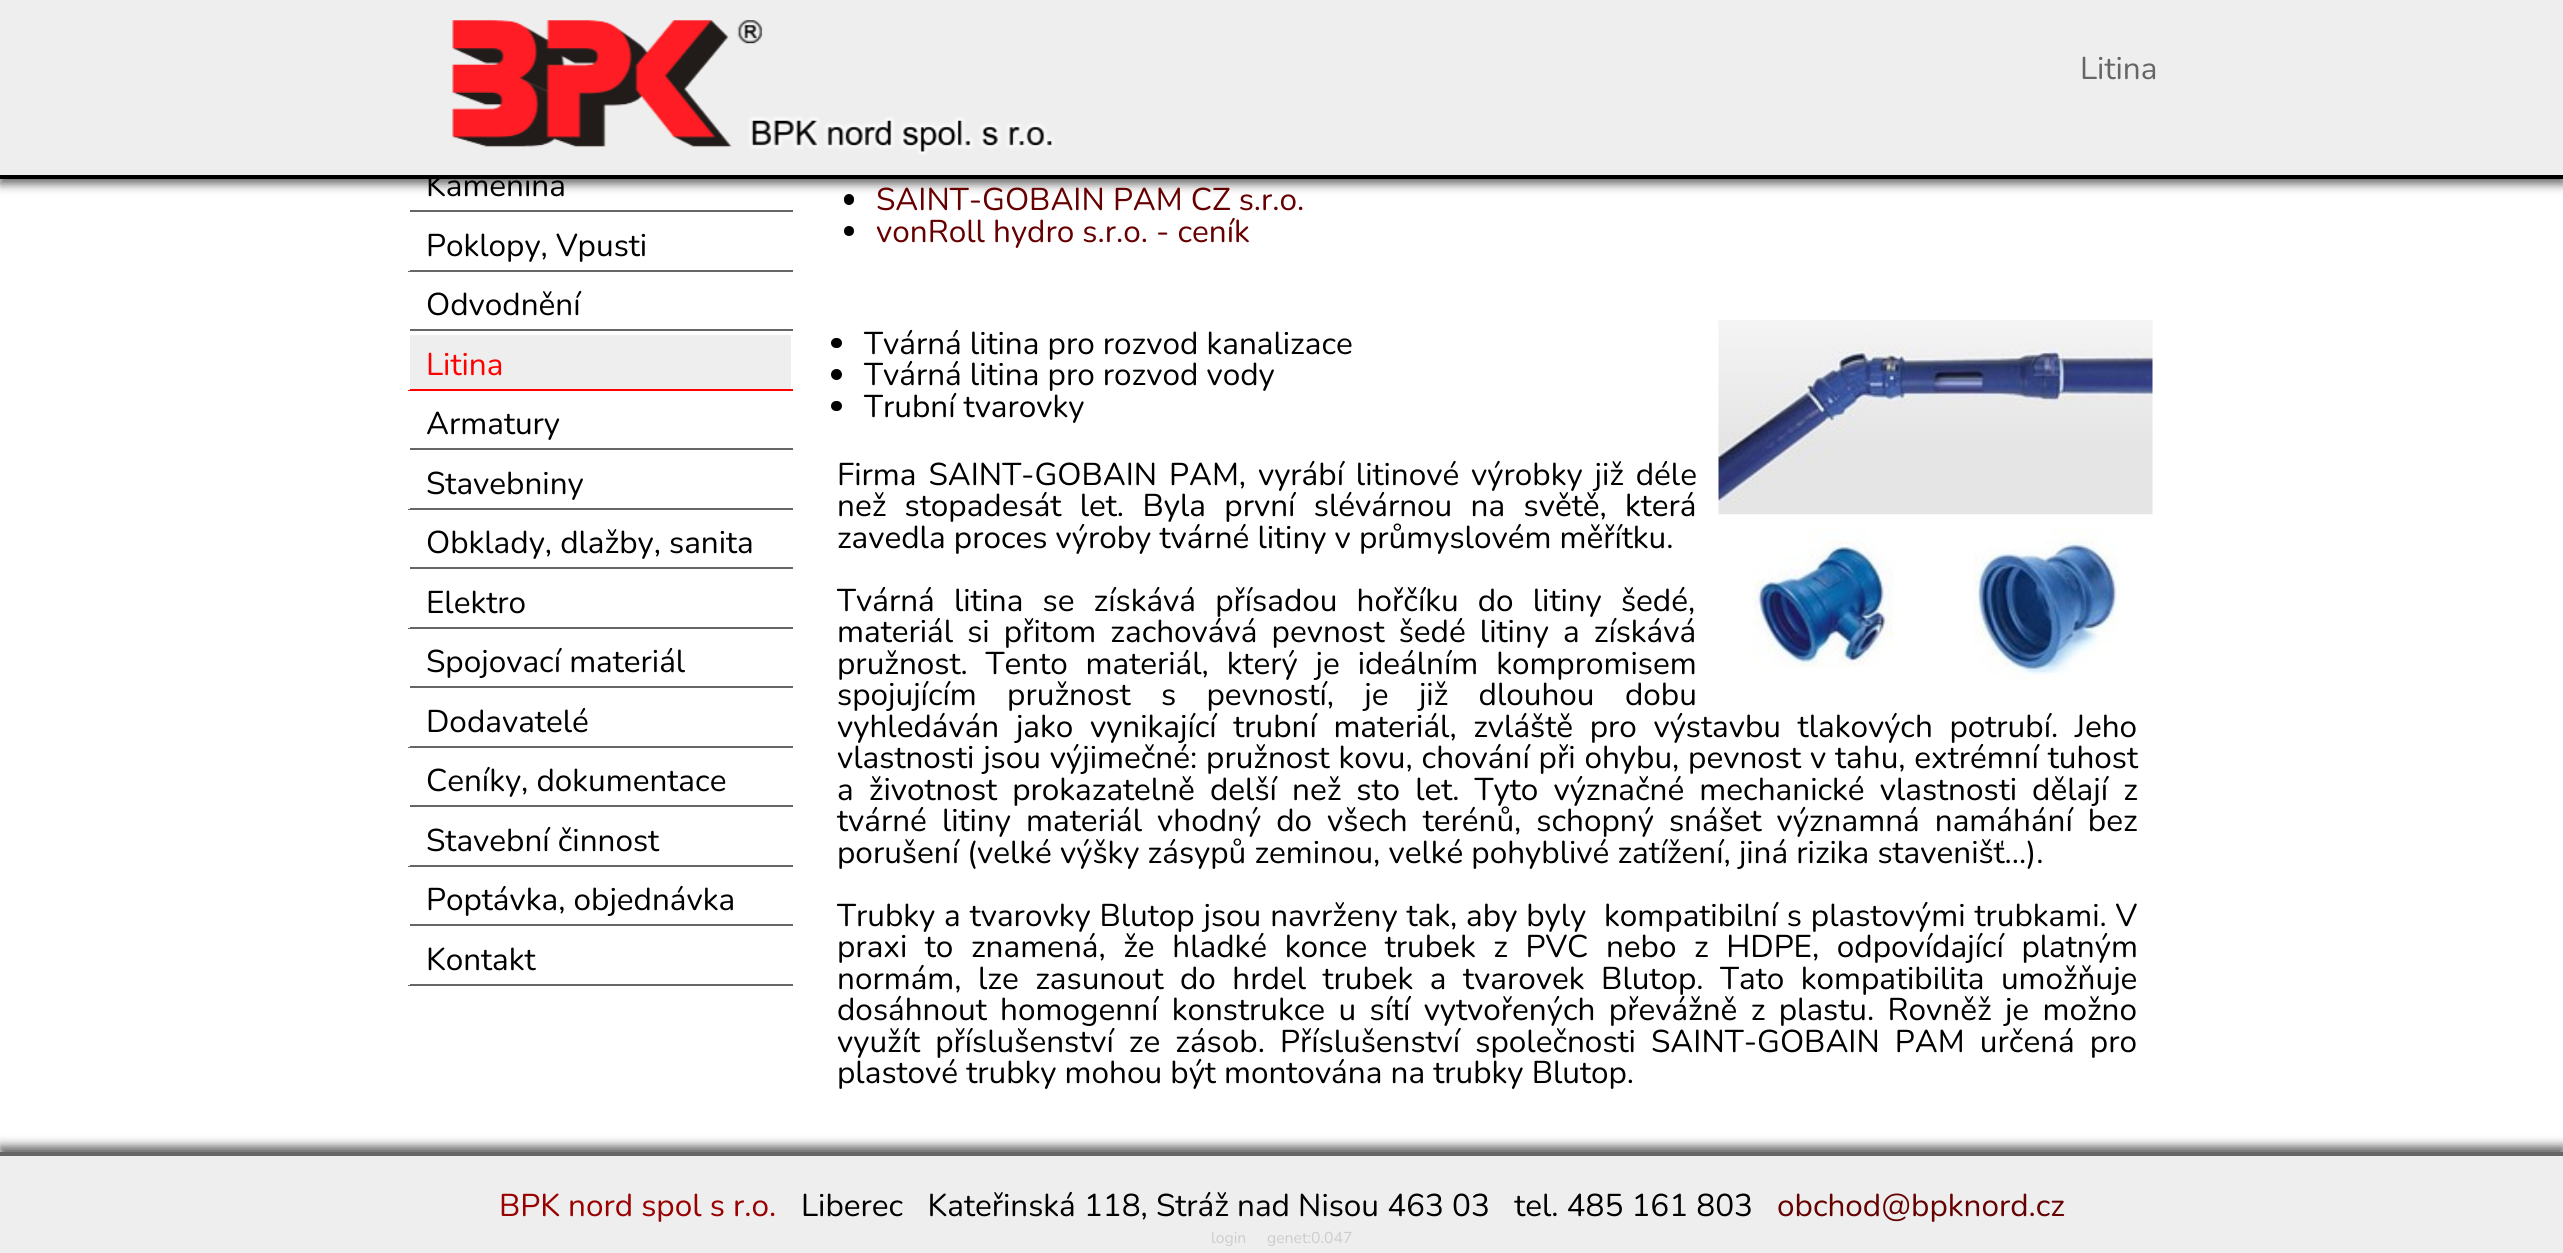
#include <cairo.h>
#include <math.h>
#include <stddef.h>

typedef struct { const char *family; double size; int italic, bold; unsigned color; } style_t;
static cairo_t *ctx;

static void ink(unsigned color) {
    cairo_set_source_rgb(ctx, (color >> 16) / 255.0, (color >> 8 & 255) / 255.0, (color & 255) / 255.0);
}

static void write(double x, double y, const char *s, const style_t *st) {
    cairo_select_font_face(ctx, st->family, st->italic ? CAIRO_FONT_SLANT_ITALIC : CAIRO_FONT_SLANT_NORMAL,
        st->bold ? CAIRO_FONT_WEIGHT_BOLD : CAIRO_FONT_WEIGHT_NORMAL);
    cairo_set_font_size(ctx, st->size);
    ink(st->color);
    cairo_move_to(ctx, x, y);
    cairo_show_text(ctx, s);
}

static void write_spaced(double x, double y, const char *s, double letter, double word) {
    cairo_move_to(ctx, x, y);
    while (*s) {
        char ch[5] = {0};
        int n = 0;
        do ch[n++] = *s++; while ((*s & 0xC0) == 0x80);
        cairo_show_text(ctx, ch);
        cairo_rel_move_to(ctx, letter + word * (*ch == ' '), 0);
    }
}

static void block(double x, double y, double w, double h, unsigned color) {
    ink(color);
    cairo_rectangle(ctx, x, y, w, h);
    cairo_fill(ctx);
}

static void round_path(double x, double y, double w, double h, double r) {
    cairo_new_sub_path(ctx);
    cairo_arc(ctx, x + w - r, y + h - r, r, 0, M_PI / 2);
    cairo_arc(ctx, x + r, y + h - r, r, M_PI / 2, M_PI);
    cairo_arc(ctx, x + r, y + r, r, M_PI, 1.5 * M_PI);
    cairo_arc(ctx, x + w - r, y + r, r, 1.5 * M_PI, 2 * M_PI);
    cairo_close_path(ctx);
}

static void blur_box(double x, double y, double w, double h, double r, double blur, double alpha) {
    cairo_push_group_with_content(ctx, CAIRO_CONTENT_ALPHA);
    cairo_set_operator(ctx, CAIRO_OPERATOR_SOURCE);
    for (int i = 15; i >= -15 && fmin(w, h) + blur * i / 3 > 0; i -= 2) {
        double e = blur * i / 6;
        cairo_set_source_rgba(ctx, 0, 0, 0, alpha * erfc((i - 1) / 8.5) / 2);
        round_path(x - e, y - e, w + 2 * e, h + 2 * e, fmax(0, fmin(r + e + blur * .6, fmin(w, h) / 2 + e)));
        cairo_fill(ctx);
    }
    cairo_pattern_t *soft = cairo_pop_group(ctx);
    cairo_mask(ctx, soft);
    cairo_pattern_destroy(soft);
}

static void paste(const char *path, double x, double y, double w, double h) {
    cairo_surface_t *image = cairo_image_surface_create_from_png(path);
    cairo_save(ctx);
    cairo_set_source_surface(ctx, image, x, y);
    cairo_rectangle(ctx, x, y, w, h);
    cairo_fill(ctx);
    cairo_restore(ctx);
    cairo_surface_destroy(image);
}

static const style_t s1 = {"Nunito ExtraLight", 31.5, 0, 0, 0x000000};
static const style_t s2 = {"Nunito ExtraLight", 31.5, 0, 0, 0x666666};
static const style_t s3 = {"Nunito ExtraLight", 31.5, 0, 0, 0xff0000};
static const style_t s4 = {"Nunito ExtraLight", 31.5, 0, 0, 0x660000};
static const style_t s5 = {"Nunito ExtraLight", 31.5, 0, 0, 0x990000};
static const style_t s6 = {"Nunito ExtraLight", 15.75, 0, 0, 0xcccccc};

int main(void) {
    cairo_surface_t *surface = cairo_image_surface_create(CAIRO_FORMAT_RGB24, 2563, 1253);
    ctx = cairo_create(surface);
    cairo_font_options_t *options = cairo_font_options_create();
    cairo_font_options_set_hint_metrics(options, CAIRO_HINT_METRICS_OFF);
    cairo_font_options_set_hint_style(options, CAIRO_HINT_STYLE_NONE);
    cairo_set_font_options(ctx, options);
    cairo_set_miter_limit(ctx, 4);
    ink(0xffffff);
    cairo_paint(ctx);
    ink(0x000000);
    round_path(844, 194, 10, 11, 5);
    cairo_fill(ctx);
    ink(0x666666);
    blur_box(0, 5, 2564, 179, 0, 5, 1);
    write(426, 196, "Kamenina", &s1);
    block(0, 0, 2563, 175, 0xeeeeee);
    block(0, 175, 2563, 4, 0x000000);
    paste("pic1.png", 452, 20, 603, 135);
    write(2080, 79, "Litina", &s2);
    block(408, 210, 385, 2, 0x666666);
    block(408, 210, 2, 2, 0xffffff);
    block(408, 270, 385, 2, 0x666666);
    block(408, 270, 2, 1, 0xffffff);
    write(426, 256, "Poklopy, Vpusti", &s1);
    block(408, 329, 385, 2, 0x666666);
    block(408, 329, 2, 2, 0xffffff);
    write(426, 315, "Odvodnění", &s1);
    block(410, 335, 381, 54, 0xeeeeee);
    block(408, 389, 385, 2, 0xff0000);
    block(408, 389, 2, 1, 0xffffff);
    write(426, 375, "Litina", &s3);
    block(408, 448, 385, 2, 0x666666);
    block(408, 448, 2, 2, 0xffffff);
    write(426, 434, "Armatury", &s1);
    block(408, 508, 385, 2, 0x666666);
    block(408, 508, 2, 1, 0xffffff);
    write(426, 494, "Stavebniny", &s1);
    block(408, 567, 385, 2, 0x666666);
    block(408, 567, 2, 2, 0xffffff);
    write(426, 553, "Obklady, dlažby, sanita", &s1);
    block(408, 627, 385, 2, 0x666666);
    block(408, 627, 2, 1, 0xffffff);
    write(426, 613, "Elektro", &s1);
    block(408, 686, 385, 2, 0x666666);
    block(408, 686, 2, 2, 0xffffff);
    write(426, 672, "Spojovací materiál", &s1);
    block(408, 746, 385, 2, 0x666666);
    block(408, 746, 2, 1, 0xffffff);
    write(426, 732, "Dodavatelé", &s1);
    block(408, 805, 385, 2, 0x666666);
    block(408, 805, 2, 2, 0xffffff);
    write(426, 791, "Ceníky, dokumentace", &s1);
    block(408, 865, 385, 2, 0x666666);
    block(408, 865, 2, 1, 0xffffff);
    write(426, 851, "Stavební činnost", &s1);
    block(408, 924, 385, 2, 0x666666);
    block(408, 924, 2, 2, 0xffffff);
    write(426, 910, "Poptávka, objednávka", &s1);
    block(408, 984, 385, 2, 0x666666);
    block(408, 984, 2, 1, 0xffffff);
    write(426, 970, "Kontakt", &s1);
    write(876, 210, "SAINT-GOBAIN PAM CZ s.r.o.", &s4);
    ink(0x000000);
    cairo_new_path(ctx);
    cairo_arc(ctx, 849, 231, 5, 0, 2 * M_PI);
    cairo_fill(ctx);
    write(876, 242, "vonRoll hydro s.r.o. - ceník", &s4);
    paste("pic2.png", 1718, 320, 435, 195);
    paste("pic3.png", 1752, 527, 143, 141);
    paste("pic4.png", 1973, 527, 148, 154);
    ink(0x000000);
    round_path(831, 338, 11, 10, 5);
    cairo_fill(ctx);
    write(864, 354, "Tvárná litina pro rozvod kanalizace", &s1);
    cairo_new_path(ctx);
    cairo_arc(ctx, 836.5, 374.5, 5.5, 0, 2 * M_PI);
    cairo_fill(ctx);
    write(864, 385, "Tvárná litina pro rozvod vody", &s1);
    round_path(831, 401, 11, 10, 5);
    cairo_fill(ctx);
    write(864, 417, "Trubní tvarovky", &s1);
    write_spaced(837, 485, "Firma SAINT-GOBAIN PAM, vyrábí litinové výrobky již déle", 0, 3.75);
    write_spaced(837, 516, "než stopadesát let. Byla první slévárnou na světě, která", 0, 10.25);
    write(837, 548, "zavedla proces výroby tvárné litiny v průmyslovém měřítku.", &s1);
    write_spaced(837, 611, "Tvárná litina se získává přísadou hořčíku do litiny šedé,", 0, 11);
    write_spaced(837, 642, "materiál si přitom zachovává pevnost šedé litiny a získává", 0, 6);
    write_spaced(837, 674, "pružnost. Tento materiál, který je ideálním kompromisem", 0, 9.75);
    write_spaced(837, 705, "spojujícím pružnost s pevností, je již dlouhou dobu", 0, 22.25);
    write_spaced(837, 737, "vyhledáván jako vynikající trubní materiál, zvláště pro výstavbu tlakových potrubí. Jeho", 0, 8.5);
    write_spaced(837, 768, "vlastnosti jsou výjimečné: pružnost kovu, chování při ohybu, pevnost v tahu, extrémní tuhost", 0, 0.75);
    write_spaced(837, 800, "a životnost prokazatelně delší než sto let. Tyto význačné mechanické vlastnosti dělají z", 0, 7);
    write_spaced(837, 831, "tvárné litiny materiál vhodný do všech terénů, schopný snášet významná namáhání bez", 0, 6.9);
    write(837, 863, "porušení (velké výšky zásypů zeminou, velké pohyblivé zatížení, jiná rizika stavenišť...).", &s1);
    write_spaced(837, 926, "Trubky a tvarovky Blutop jsou navrženy tak, aby byly  kompatibilní s plastovými trubkami. V", 0, 0.75);
    write_spaced(837, 957, "praxi to znamená, že hladké konce trubek z PVC nebo z HDPE, odpovídající platným", 0, 9.5);
    write_spaced(837, 989, "normám, lze zasunout do hrdel trubek a tvarovek Blutop. Tato kompatibilita umožňuje", 0, 8.4);
    write_spaced(837, 1020, "dosáhnout homogenní konstrukce u sítí vytvořených převážně z plastu. Rovněž je možno", 0, 5.25);
    write_spaced(837, 1052, "využít příslušenství ze zásob. Příslušenství společnosti SAINT-GOBAIN PAM určená pro", 0, 7);
    write(837, 1083, "plastové trubky mohou být montována na trubky Blutop.", &s1);
    ink(0x666666);
    blur_box(0, 1146, 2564, 102, 0, 5, 1);
    block(0, 1156, 2563, 97, 0xeeeeee);
    block(0, 1152, 2563, 4, 0x666666);
    write(499, 1216, "BPK nord spol s r.o.", &s5);
    write(801, 1216, "Liberec   Kateřinská 118, Stráž nad Nisou 463 03   tel. 485 161 803", &s1);
    write(1777, 1216, "obchod@bpknord.cz", &s4);
    write(1211, 1243, "login", &s6);
    write(1267, 1243, "genet:0.047", &s6);
    cairo_surface_write_to_png(surface, "screenshot.png");
    cairo_font_options_destroy(options);
    cairo_destroy(ctx);
    cairo_surface_destroy(surface);
    return 0;
}
